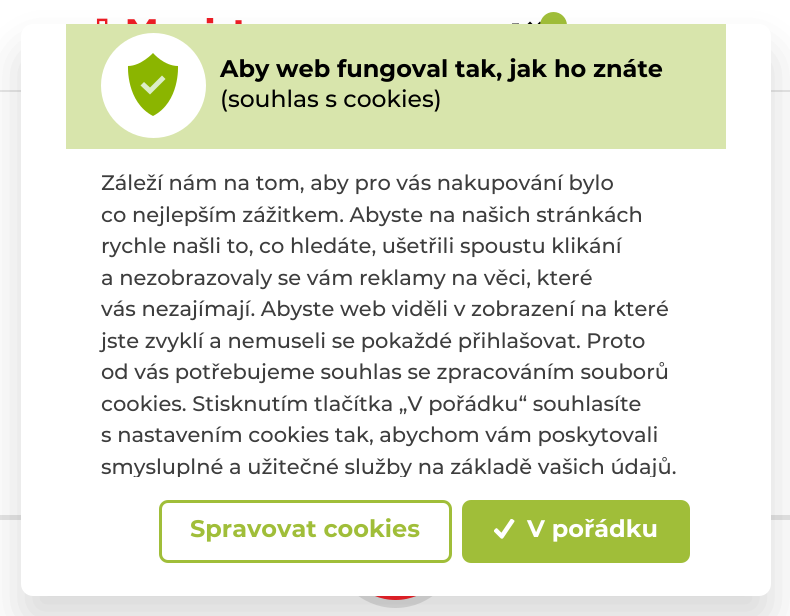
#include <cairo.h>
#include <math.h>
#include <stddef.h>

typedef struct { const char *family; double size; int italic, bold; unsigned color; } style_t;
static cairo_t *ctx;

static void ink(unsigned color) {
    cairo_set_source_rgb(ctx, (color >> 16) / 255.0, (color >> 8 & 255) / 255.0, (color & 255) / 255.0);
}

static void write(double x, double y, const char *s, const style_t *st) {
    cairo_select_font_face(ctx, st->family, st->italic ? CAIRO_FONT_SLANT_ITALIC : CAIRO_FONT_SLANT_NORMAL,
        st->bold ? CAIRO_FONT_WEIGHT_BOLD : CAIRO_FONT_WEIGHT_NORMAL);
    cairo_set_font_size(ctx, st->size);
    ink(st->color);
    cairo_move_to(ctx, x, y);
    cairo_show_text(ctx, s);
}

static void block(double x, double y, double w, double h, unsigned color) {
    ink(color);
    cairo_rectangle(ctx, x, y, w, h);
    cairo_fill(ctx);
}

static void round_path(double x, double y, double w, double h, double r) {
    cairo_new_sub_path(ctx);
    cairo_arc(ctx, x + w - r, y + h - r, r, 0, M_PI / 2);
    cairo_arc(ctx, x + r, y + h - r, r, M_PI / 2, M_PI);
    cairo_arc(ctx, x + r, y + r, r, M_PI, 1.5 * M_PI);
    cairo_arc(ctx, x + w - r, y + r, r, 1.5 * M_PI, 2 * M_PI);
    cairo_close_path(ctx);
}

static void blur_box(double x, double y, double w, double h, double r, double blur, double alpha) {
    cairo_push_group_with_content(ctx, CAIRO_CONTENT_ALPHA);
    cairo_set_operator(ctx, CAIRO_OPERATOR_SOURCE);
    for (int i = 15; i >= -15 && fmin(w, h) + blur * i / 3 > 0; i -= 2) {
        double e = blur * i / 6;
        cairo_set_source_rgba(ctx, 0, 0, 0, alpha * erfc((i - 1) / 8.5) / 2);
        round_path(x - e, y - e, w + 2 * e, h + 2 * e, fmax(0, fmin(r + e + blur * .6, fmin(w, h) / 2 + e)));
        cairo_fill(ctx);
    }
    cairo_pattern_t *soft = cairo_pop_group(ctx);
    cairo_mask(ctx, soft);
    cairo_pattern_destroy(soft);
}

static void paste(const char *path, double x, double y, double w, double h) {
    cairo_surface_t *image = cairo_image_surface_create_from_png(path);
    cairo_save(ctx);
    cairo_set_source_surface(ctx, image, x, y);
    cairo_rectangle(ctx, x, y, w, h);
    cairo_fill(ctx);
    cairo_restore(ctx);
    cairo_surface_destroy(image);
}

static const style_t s1 = {"Montserrat", 24, 0, 1, 0x000000};
static const style_t s2 = {"Montserrat Medium", 23.5, 0, 0, 0x000000};
static const style_t s3 = {"Montserrat Medium", 21, 0, 0, 0x3d3d3d};
static const style_t s4 = {"Montserrat", 24, 0, 1, 0xa0be39};
static const style_t s5 = {"Montserrat", 24, 0, 1, 0xffffff};

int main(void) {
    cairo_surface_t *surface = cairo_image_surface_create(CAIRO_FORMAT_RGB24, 790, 616);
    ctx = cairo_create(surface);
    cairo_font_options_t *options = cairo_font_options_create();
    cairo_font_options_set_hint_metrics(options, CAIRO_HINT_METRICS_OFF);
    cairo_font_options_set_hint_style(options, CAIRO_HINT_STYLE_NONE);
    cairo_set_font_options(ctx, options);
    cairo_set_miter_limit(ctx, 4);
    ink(0xffffff);
    cairo_paint(ctx);
    block(0, 90, 790, 2, 0xe6e6e6);
    paste("pic1.png", 96, 18, 146, 6);
    paste("pic2.png", 512, 21, 29, 3);
    ink(0xa0be39);
    cairo_arc(ctx, 553.5, 25.5, 13.5, 0, 2 * M_PI);
    cairo_fill(ctx);
    block(0, 515, 790, 5, 0xe4e4e4);
    ink(0xfa232b);
    round_path(336, 484, 119, 120, 59.5);
    cairo_fill_preserve(ctx);
    ink(0xe4e4e4);
    cairo_set_line_width(ctx, 8);
    cairo_stroke(ctx);
    ink(0x000000);
    blur_box(21, 51, 750, 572, 12, 22.5, 0.15);
    ink(0xffffff);
    round_path(21, 24, 750, 572, 12);
    cairo_fill(ctx);
    block(66, 24, 660, 125, 0xd8e5ac);
    ink(0xffffff);
    cairo_arc(ctx, 153.5, 85.5, 52.5, 0, 2 * M_PI);
    cairo_fill(ctx);
    ink(0x8bb500);
    cairo_new_path(ctx);
    cairo_move_to(ctx, 178, 66);
    cairo_curve_to(ctx, 178, 66, 180, 102, 153, 116);
    cairo_curve_to(ctx, 126, 102, 128, 66, 128, 66);
    cairo_curve_to(ctx, 141, 66, 153, 53, 153, 53);
    cairo_curve_to(ctx, 153, 53, 164, 66, 178, 66);
    cairo_close_path(ctx);
    cairo_fill(ctx);
    ink(0xdcedc8);
    cairo_new_path(ctx);
    cairo_move_to(ctx, 162, 75.5);
    cairo_line_to(ctx, 150, 87.5);
    cairo_line_to(ctx, 144, 82);
    cairo_line_to(ctx, 140.5, 85.5);
    cairo_line_to(ctx, 150, 94.5);
    cairo_line_to(ctx, 165.5, 79);
    cairo_close_path(ctx);
    cairo_fill(ctx);
    write(220, 77, "Aby web fungoval tak, jak ho znáte", &s1);
    write(220, 107, "(souhlas s cookies)", &s2);
    write(101, 190, "Záleží nám na tom, aby pro vás nakupování bylo", &s3);
    write(101, 222, "co nejlepším zážitkem. Abyste na našich stránkách", &s3);
    write(101, 253, "rychle našli to, co hledáte, ušetřili spoustu klikání", &s3);
    write(101, 285, "a nezobrazovaly se vám reklamy na věci, které", &s3);
    write(101, 316, "vás nezajímají. Abyste web viděli v zobrazení na které", &s3);
    write(101, 348, "jste zvyklí a nemuseli se pokaždé přihlašovat. Proto", &s3);
    write(101, 379, "od vás potřebujeme souhlas se zpracováním souborů", &s3);
    write(101, 411, "cookies. Stisknutím tlačítka „V pořádku“ souhlasíte", &s3);
    write(101, 442, "s nastavením cookies tak, abychom vám poskytovali", &s3);
    write(101, 474, "smysluplné a užitečné služby na základě vašich údajů.", &s3);
    block(133, 477, 522, 2, 0xffffff);
    round_path(160.5, 501.5, 290, 60, 7.5);
    ink(0xa0be39);
    cairo_set_line_width(ctx, 3);
    cairo_stroke(ctx);
    write(190, 537, "Spravovat cookies", &s4);
    round_path(463.5, 501.5, 225, 60, 7.5);
    cairo_fill_preserve(ctx);
    cairo_stroke(ctx);
    paste("pic3.png", 494, 519, 21, 20);
    write(527, 537, "V pořádku", &s5);
    cairo_surface_write_to_png(surface, "screenshot.png");
    cairo_font_options_destroy(options);
    cairo_destroy(ctx);
    cairo_surface_destroy(surface);
    return 0;
}
